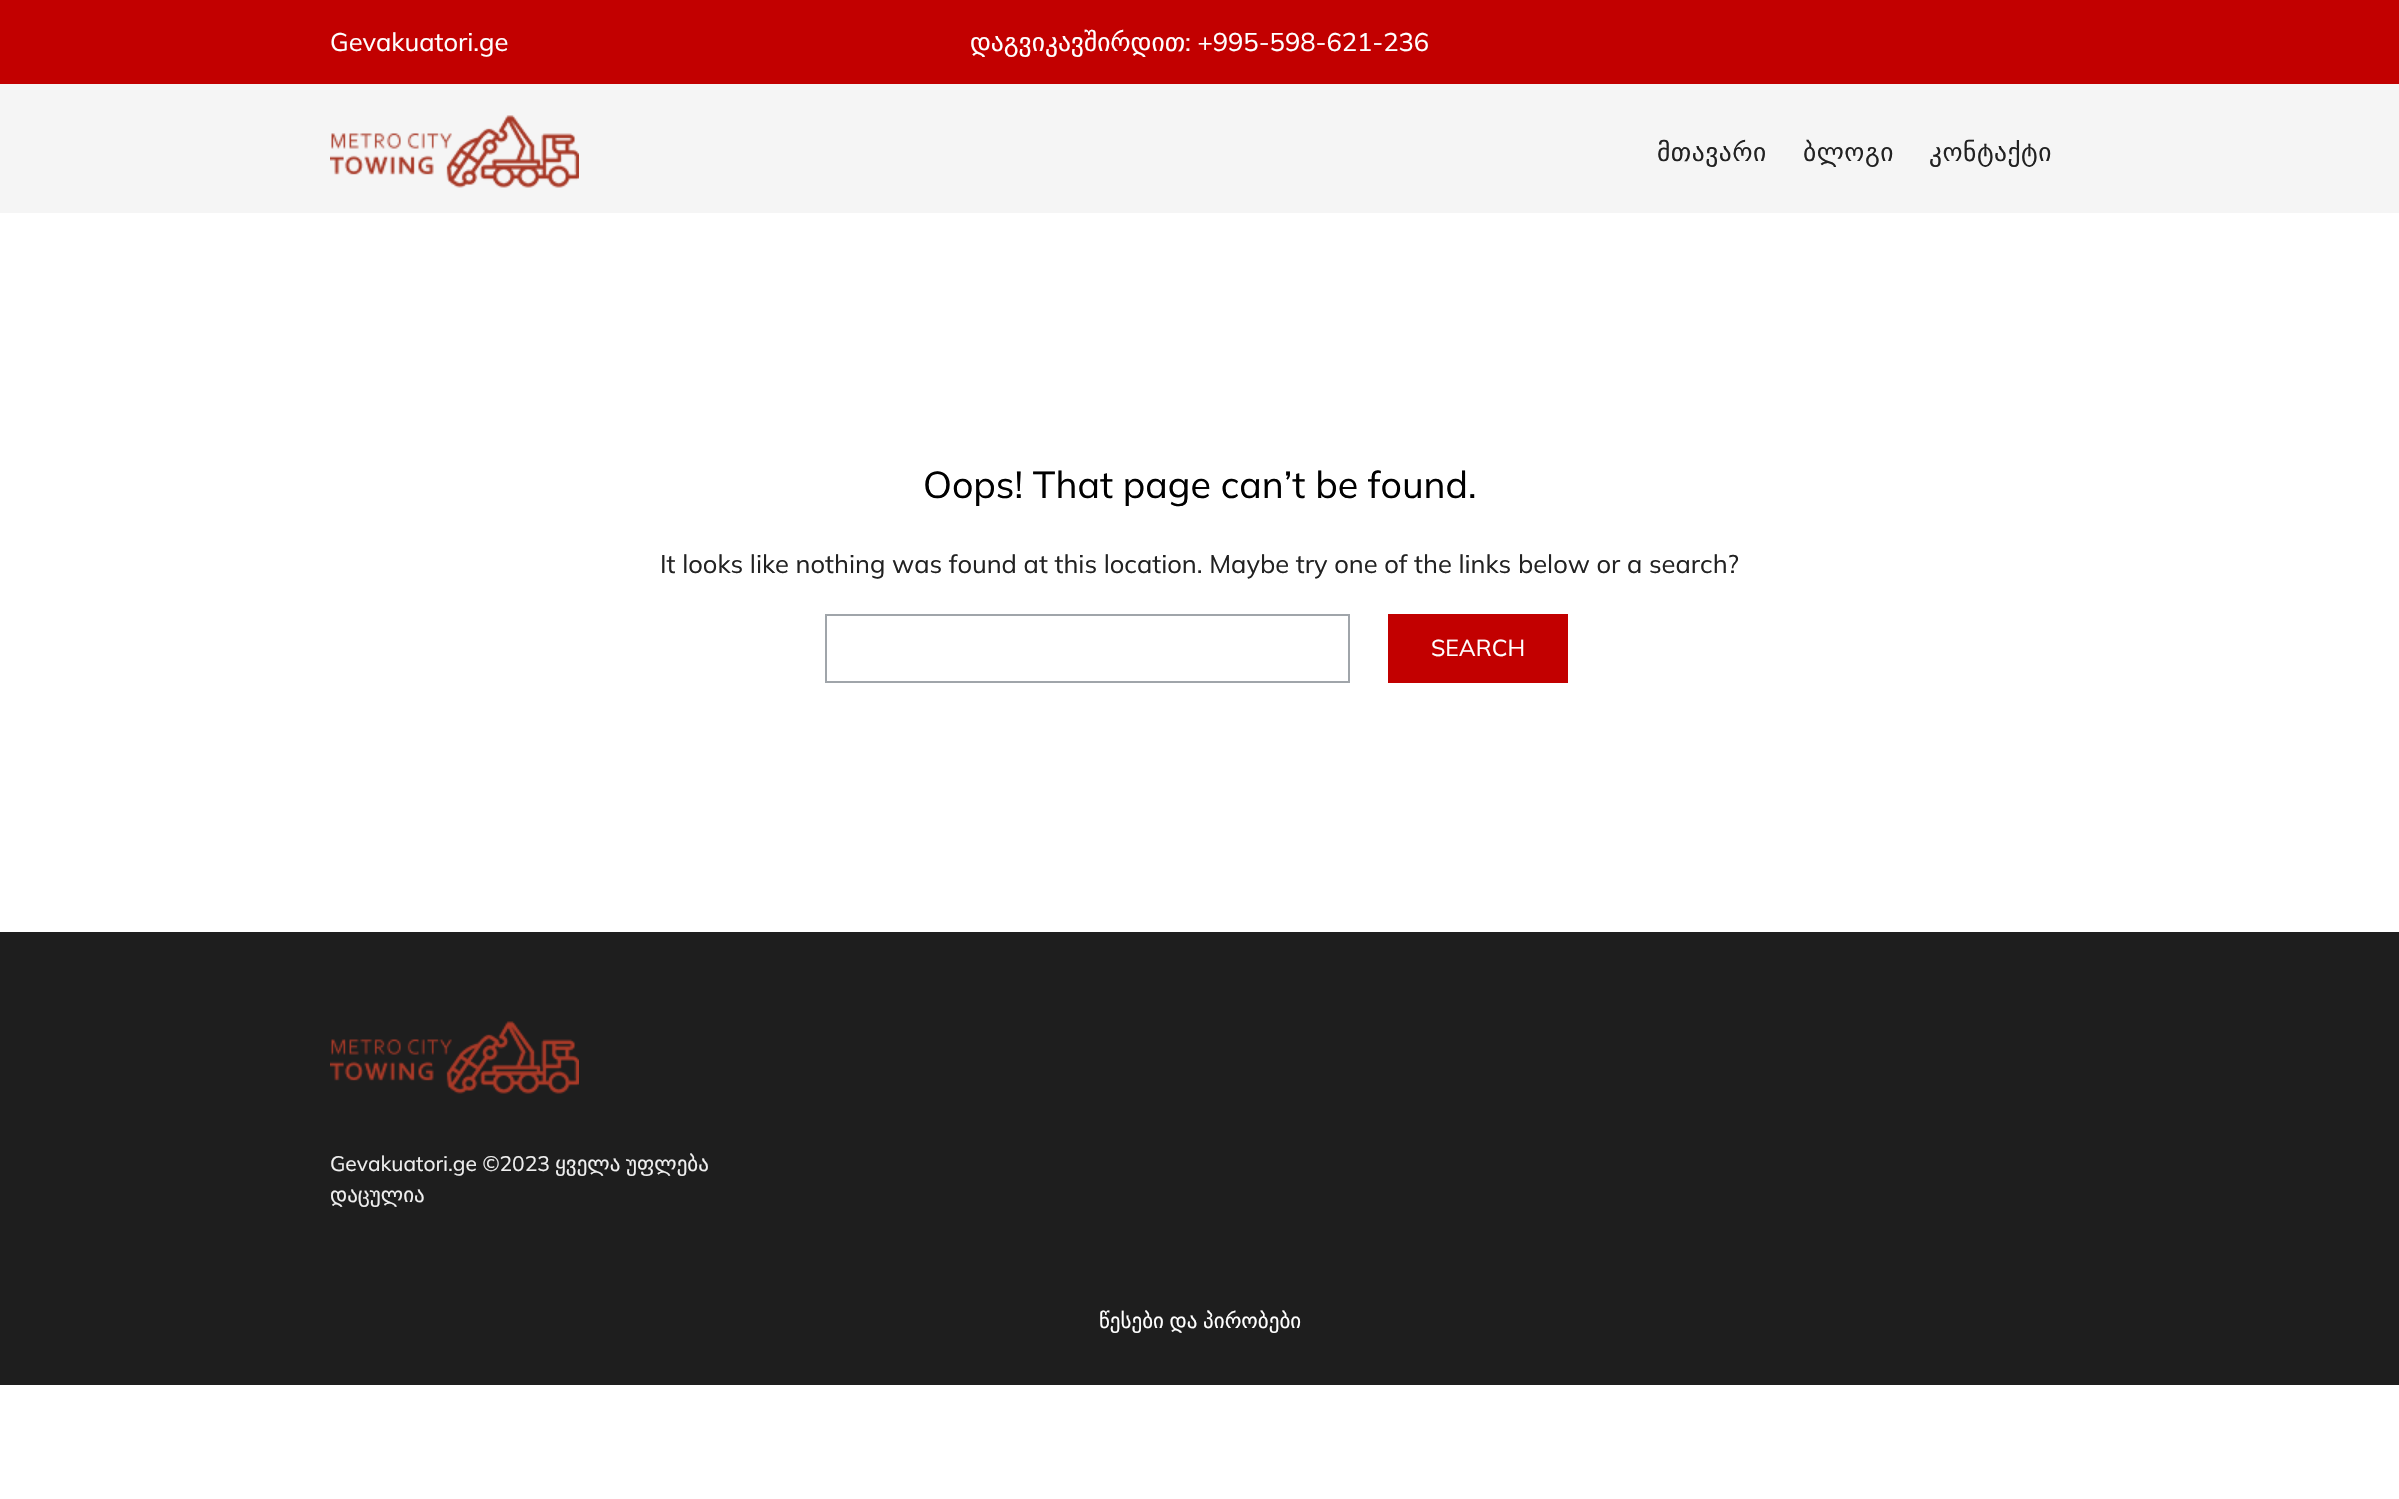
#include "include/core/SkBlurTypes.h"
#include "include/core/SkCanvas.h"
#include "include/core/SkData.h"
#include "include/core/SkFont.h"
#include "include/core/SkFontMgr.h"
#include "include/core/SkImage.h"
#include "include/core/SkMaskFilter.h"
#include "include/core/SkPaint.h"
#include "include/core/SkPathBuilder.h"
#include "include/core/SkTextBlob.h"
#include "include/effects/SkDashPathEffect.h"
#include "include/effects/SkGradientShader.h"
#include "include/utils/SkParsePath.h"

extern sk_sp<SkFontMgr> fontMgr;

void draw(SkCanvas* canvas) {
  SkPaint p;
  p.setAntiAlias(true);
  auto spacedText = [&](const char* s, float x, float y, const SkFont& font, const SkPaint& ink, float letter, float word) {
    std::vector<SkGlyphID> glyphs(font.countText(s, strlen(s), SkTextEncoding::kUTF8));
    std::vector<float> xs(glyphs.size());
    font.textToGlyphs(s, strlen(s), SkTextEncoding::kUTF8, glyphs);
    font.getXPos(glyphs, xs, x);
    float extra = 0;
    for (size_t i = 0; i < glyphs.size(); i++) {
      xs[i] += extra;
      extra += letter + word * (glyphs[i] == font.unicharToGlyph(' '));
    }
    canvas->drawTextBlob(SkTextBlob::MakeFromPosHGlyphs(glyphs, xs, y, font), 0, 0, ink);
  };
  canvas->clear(SK_ColorWHITE);
  p.setColor(SkColorSetRGB(194, 0, 0));
  canvas->drawRect(SkRect::MakeLTRB(0, 0, 2399, 84), p);
  p.setColor(SkColorSetRGB(245, 245, 245));
  canvas->drawRect(SkRect::MakeLTRB(0, 84, 2399, 213), p);
  canvas->drawImageRect(SkImages::DeferredFromEncodedData(SkData::MakeFromFileName("images/1.png")), SkRect::MakeLTRB(330, 115, 579, 188), SkSamplingOptions());
  p.setStyle(SkPaint::kStroke_Style);
  p.setStrokeWidth(2);
  p.setColor(SkColorSetRGB(160, 165, 170));
  canvas->drawRect(SkRect::MakeLTRB(826, 615, 1349, 682), p);
  p.setStyle(SkPaint::kFill_Style);
  p.setColor(SkColorSetRGB(194, 0, 0));
  canvas->drawRect(SkRect::MakeLTRB(1388, 614, 1568, 683), p);
  p.setColor(SkColorSetRGB(30, 30, 30));
  canvas->drawRect(SkRect::MakeLTRB(0, 932, 2399, 1385), p);
  canvas->drawImageRect(SkImages::DeferredFromEncodedData(SkData::MakeFromFileName("images/2.png")), SkRect::MakeLTRB(330, 1021, 579, 1094), SkSamplingOptions());
  SkFont font1(fontMgr->matchFamilyStyle("Mulish", SkFontStyle(200, SkFontStyle::kNormal_Width, SkFontStyle::kUpright_Slant)), 25.5f);
  font1.setSubpixel(true);
  p.setColor(SK_ColorWHITE);
  canvas->drawString("Gevakuatori.ge", 330, 51, font1, p);
  SkFont font2(fontMgr->matchFamilyStyle("DejaVu Sans", SkFontStyle::Normal()), 25.5f);
  font2.setSubpixel(true);
  canvas->drawString("დაგვიკავშირდით", 970, 51, font2, p);
  canvas->drawString(": +995-598-621-236", 1185, 51, font1, p);
  p.setColor(SkColorSetRGB(34, 34, 34));
  spacedText("მთავარი", 1657, 161, font2, p, 0.5f, 0);
  spacedText("ბლოგი", 1803, 161, font2, p, 0.5f, 0);
  spacedText("კონტაქტი", 1929, 161, font2, p, 0.5f, 0);
  SkFont font3(fontMgr->matchFamilyStyle("Mulish", SkFontStyle(200, SkFontStyle::kNormal_Width, SkFontStyle::kUpright_Slant)), 37.5f);
  font3.setSubpixel(true);
  p.setColor(SK_ColorBLACK);
  canvas->drawString("Oops! That page can’t be found.", 923, 498, font3, p);
  p.setColor(SkColorSetRGB(34, 34, 34));
  canvas->drawString("It looks like nothing was found at this location. Maybe try one of the links below or a search?", 660, 573, font1, p);
  SkFont font4(fontMgr->matchFamilyStyle("Mulish", SkFontStyle(200, SkFontStyle::kNormal_Width, SkFontStyle::kUpright_Slant)), 23);
  font4.setSubpixel(true);
  p.setColor(SK_ColorWHITE);
  canvas->drawString("SEARCH", 1431, 656, font4, p);
  SkFont font5(fontMgr->matchFamilyStyle("Mulish", SkFontStyle(200, SkFontStyle::kNormal_Width, SkFontStyle::kUpright_Slant)), 21);
  font5.setSubpixel(true);
  p.setColor(SkColorSetRGB(239, 239, 239));
  canvas->drawString("Gevakuatori.ge ©2023", 330, 1171, font5, p);
  SkFont font6(fontMgr->matchFamilyStyle("DejaVu Sans", SkFontStyle::Normal()), 21);
  font6.setSubpixel(true);
  canvas->drawString("ყველა", 555, 1171, font6, p);
  canvas->drawString("უფლება", 626, 1171, font6, p);
  canvas->drawString("დაცულია", 330, 1202, font6, p);
  p.setColor(SK_ColorWHITE);
  spacedText("წესები და პირობები", 1099, 1328, font6, p, 0, -1);
}
